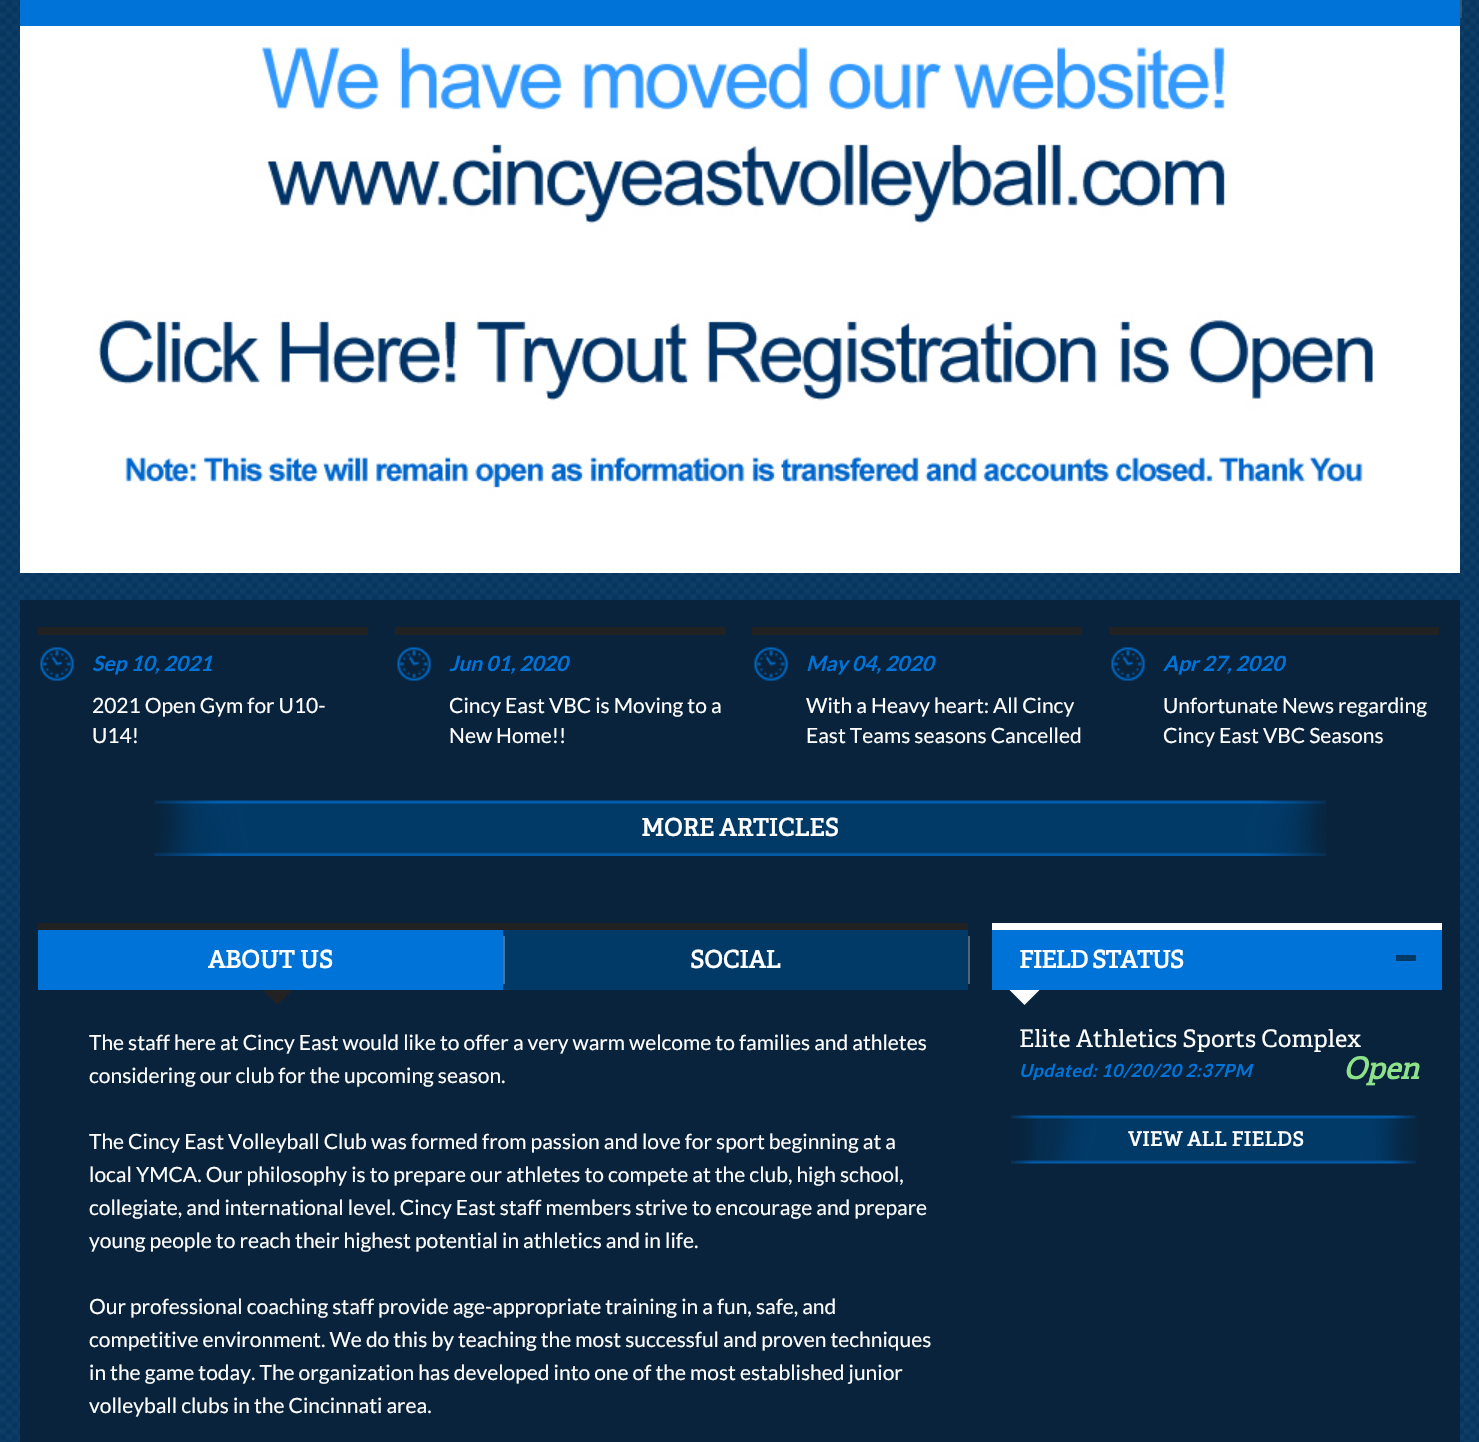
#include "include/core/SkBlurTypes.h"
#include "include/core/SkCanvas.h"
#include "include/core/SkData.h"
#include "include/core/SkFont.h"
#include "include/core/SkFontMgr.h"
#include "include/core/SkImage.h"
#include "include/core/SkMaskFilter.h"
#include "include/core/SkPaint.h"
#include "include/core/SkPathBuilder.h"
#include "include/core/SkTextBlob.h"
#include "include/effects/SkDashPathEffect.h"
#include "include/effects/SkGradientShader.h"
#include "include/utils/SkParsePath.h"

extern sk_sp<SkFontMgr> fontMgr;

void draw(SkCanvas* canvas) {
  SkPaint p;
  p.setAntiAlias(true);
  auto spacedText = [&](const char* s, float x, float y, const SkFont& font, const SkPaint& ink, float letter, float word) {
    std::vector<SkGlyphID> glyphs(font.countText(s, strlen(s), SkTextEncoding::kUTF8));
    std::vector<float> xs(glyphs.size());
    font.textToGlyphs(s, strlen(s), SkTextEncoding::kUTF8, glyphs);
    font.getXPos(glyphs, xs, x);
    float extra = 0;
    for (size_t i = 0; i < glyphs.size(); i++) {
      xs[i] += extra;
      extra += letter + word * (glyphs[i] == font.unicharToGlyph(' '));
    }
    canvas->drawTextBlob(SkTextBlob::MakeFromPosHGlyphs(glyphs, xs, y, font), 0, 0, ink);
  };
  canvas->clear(SK_ColorWHITE);
  canvas->drawImageRect(SkImages::DeferredFromEncodedData(SkData::MakeFromFileName("images/1.png")), SkRect::MakeLTRB(0, 0, 1479, 1442), SkSamplingOptions());
  p.setColor(SkColorSetRGB(0, 115, 216));
  canvas->drawRect(SkRect::MakeLTRB(20, 0, 1460, 26), p);
  p.setColor(SkColorSetARGB(38, 255, 255, 255));
  canvas->drawRect(SkRect::MakeLTRB(1460, 0, 1462, 18), p);
  canvas->drawImageRect(SkImages::DeferredFromEncodedData(SkData::MakeFromFileName("images/2.png")), SkRect::MakeLTRB(20, 26, 1460, 573), SkSamplingOptions());
  p.setColor(SkColorSetRGB(8, 35, 59));
  canvas->drawRect(SkRect::MakeLTRB(20, 600, 1460, 1442), p);
  p.setColor(SkColorSetRGB(34, 34, 34));
  canvas->drawRect(SkRect::MakeLTRB(38, 627, 368, 635), p);
  canvas->drawImageRect(SkImages::DeferredFromEncodedData(SkData::MakeFromFileName("images/3.png")), SkRect::MakeLTRB(40, 647, 74, 681), SkSamplingOptions());
  canvas->drawRect(SkRect::MakeLTRB(395, 627, 725, 635), p);
  canvas->drawImageRect(SkImages::DeferredFromEncodedData(SkData::MakeFromFileName("images/4.png")), SkRect::MakeLTRB(397, 647, 431, 681), SkSamplingOptions());
  canvas->drawRect(SkRect::MakeLTRB(752, 627, 1082, 635), p);
  canvas->drawImageRect(SkImages::DeferredFromEncodedData(SkData::MakeFromFileName("images/5.png")), SkRect::MakeLTRB(754, 647, 788, 681), SkSamplingOptions());
  canvas->drawRect(SkRect::MakeLTRB(1109, 627, 1439, 635), p);
  canvas->drawImageRect(SkImages::DeferredFromEncodedData(SkData::MakeFromFileName("images/3.png")), SkRect::MakeLTRB(1111, 647, 1145, 681), SkSamplingOptions());
  canvas->drawImageRect(SkImages::DeferredFromEncodedData(SkData::MakeFromFileName("images/6.png")), SkRect::MakeLTRB(154, 800, 1326, 856), SkSamplingOptions());
  p.setColor(SkColorSetRGB(1, 57, 103));
  canvas->drawRect(SkRect::MakeLTRB(503, 930, 968, 990), p);
  p.setColor(SkColorSetRGB(34, 34, 34));
  canvas->drawRect(SkRect::MakeLTRB(38, 923, 968, 930), p);
  p.setColor(SkColorSetRGB(0, 115, 216));
  canvas->drawRect(SkRect::MakeLTRB(38, 930, 503, 990), p);
  p.setColor(SkColorSetRGB(77, 116, 149));
  canvas->drawRect(SkRect::MakeLTRB(503, 936, 505, 984), p);
  p.setColor(SkColorSetRGB(34, 34, 34));
  canvas->drawPath(SkPathBuilder().moveTo(262.5f, 990).lineTo(292.5f, 990).lineTo(277.5f, 1005).close().detach(), p);
  p.setColor(SkColorSetRGB(82, 101, 118));
  canvas->drawRect(SkRect::MakeLTRB(968, 936, 970, 984), p);
  p.setColor(SkColorSetRGB(0, 115, 216));
  canvas->drawRect(SkRect::MakeLTRB(992, 930, 1442, 990), p);
  p.setColor(SK_ColorWHITE);
  canvas->drawRect(SkRect::MakeLTRB(992, 923, 1442, 930), p);
  p.setColor(SkColorSetRGB(1, 57, 103));
  canvas->drawRect(SkRect::MakeLTRB(1396, 955, 1416, 961), p);
  p.setColor(SK_ColorWHITE);
  canvas->drawPath(SkPathBuilder().moveTo(1009.5f, 990).lineTo(1039.5f, 990).lineTo(1024.5f, 1005).close().detach(), p);
  canvas->drawImageRect(SkImages::DeferredFromEncodedData(SkData::MakeFromFileName("images/7.png")), SkRect::MakeLTRB(1011, 1115, 1418, 1164), SkSamplingOptions());
  SkFont font1(fontMgr->matchFamilyStyle("Lato", SkFontStyle::BoldItalic()), 21);
  font1.setSubpixel(true);
  p.setColor(SkColorSetRGB(0, 115, 216));
  canvas->drawString("Sep 10, 2021", 92, 671, font1, p);
  SkFont font2(fontMgr->matchFamilyStyle("Lato", SkFontStyle::Normal()), 21);
  font2.setSubpixel(true);
  p.setColor(SK_ColorWHITE);
  canvas->drawString("2021 Open Gym for U10-", 92, 713, font2, p);
  canvas->drawString("U14!", 92, 743, font2, p);
  p.setColor(SkColorSetRGB(0, 115, 216));
  canvas->drawString("Jun 01, 2020", 449, 671, font1, p);
  p.setColor(SK_ColorWHITE);
  canvas->drawString("Cincy East VBC is Moving to a", 449, 713, font2, p);
  canvas->drawString("New Home!!", 449, 743, font2, p);
  p.setColor(SkColorSetRGB(0, 115, 216));
  canvas->drawString("May 04, 2020", 806, 671, font1, p);
  p.setColor(SK_ColorWHITE);
  canvas->drawString("With a Heavy heart: All Cincy", 806, 713, font2, p);
  canvas->drawString("East Teams seasons Cancelled", 806, 743, font2, p);
  p.setColor(SkColorSetRGB(0, 115, 216));
  canvas->drawString("Apr 27, 2020", 1163, 671, font1, p);
  p.setColor(SK_ColorWHITE);
  canvas->drawString("Unfortunate News regarding", 1163, 713, font2, p);
  canvas->drawString("Cincy East VBC Seasons", 1163, 743, font2, p);
  SkFont font3(fontMgr->matchFamilyStyle("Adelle", SkFontStyle::Bold()), 24);
  font3.setSubpixel(true);
  canvas->drawString("MORE ARTICLES", 641, 836, font3, p);
  canvas->drawString("ABOUT US", 208, 968, font3, p);
  canvas->drawString("SOCIAL", 690, 968, font3, p);
  canvas->drawString("The staff here at Cincy East would like to offer a very warm welcome to families and athletes", 89, 1050, font2, p);
  canvas->drawString("considering our club for the upcoming season.", 89, 1083, font2, p);
  canvas->drawString("The Cincy East Volleyball Club was formed from passion and love for sport beginning at a", 89, 1149, font2, p);
  canvas->drawString("local YMCA. Our philosophy is to prepare our athletes to compete at the club, high school,", 89, 1182, font2, p);
  canvas->drawString("collegiate, and international level. Cincy East staff members strive to encourage and prepare", 89, 1215, font2, p);
  canvas->drawString("young people to reach their highest potential in athletics and in life.", 89, 1248, font2, p);
  canvas->drawString("Our professional coaching staff provide age-appropriate training in a fun, safe, and", 89, 1314, font2, p);
  canvas->drawString("competitive environment. We do this by teaching the most successful and proven techniques", 89, 1347, font2, p);
  canvas->drawString("in the game today. The organization has developed into one of the most established junior", 89, 1380, font2, p);
  canvas->drawString("volleyball clubs in the Cincinnati area.", 89, 1413, font2, p);
  spacedText("FIELD STATUS", 1019, 968, font3, p, -0.75f, 0);
  SkFont font4(fontMgr->matchFamilyStyle("Adelle", SkFontStyle::Normal()), 24);
  font4.setSubpixel(true);
  canvas->drawString("Elite Athletics Sports Complex", 1019, 1047, font4, p);
  SkFont font5(fontMgr->matchFamilyStyle("Lato", SkFontStyle::BoldItalic()), 18);
  font5.setSubpixel(true);
  p.setColor(SkColorSetRGB(0, 115, 216));
  spacedText("Updated: 10/20/20 2:37PM", 1019, 1077, font5, p, 0.45f, 0);
  SkFont font6(fontMgr->matchFamilyStyle("Adelle", SkFontStyle::BoldItalic()), 30);
  font6.setSubpixel(true);
  p.setColor(SkColorSetRGB(142, 227, 138));
  canvas->drawString("Open", 1343, 1079, font6, p);
  SkFont font7(fontMgr->matchFamilyStyle("Adelle", SkFontStyle::Bold()), 19.5f);
  font7.setSubpixel(true);
  p.setColor(SK_ColorWHITE);
  spacedText("VIEW ALL FIELDS", 1128, 1146, font7, p, 0.45f, 0);
}
